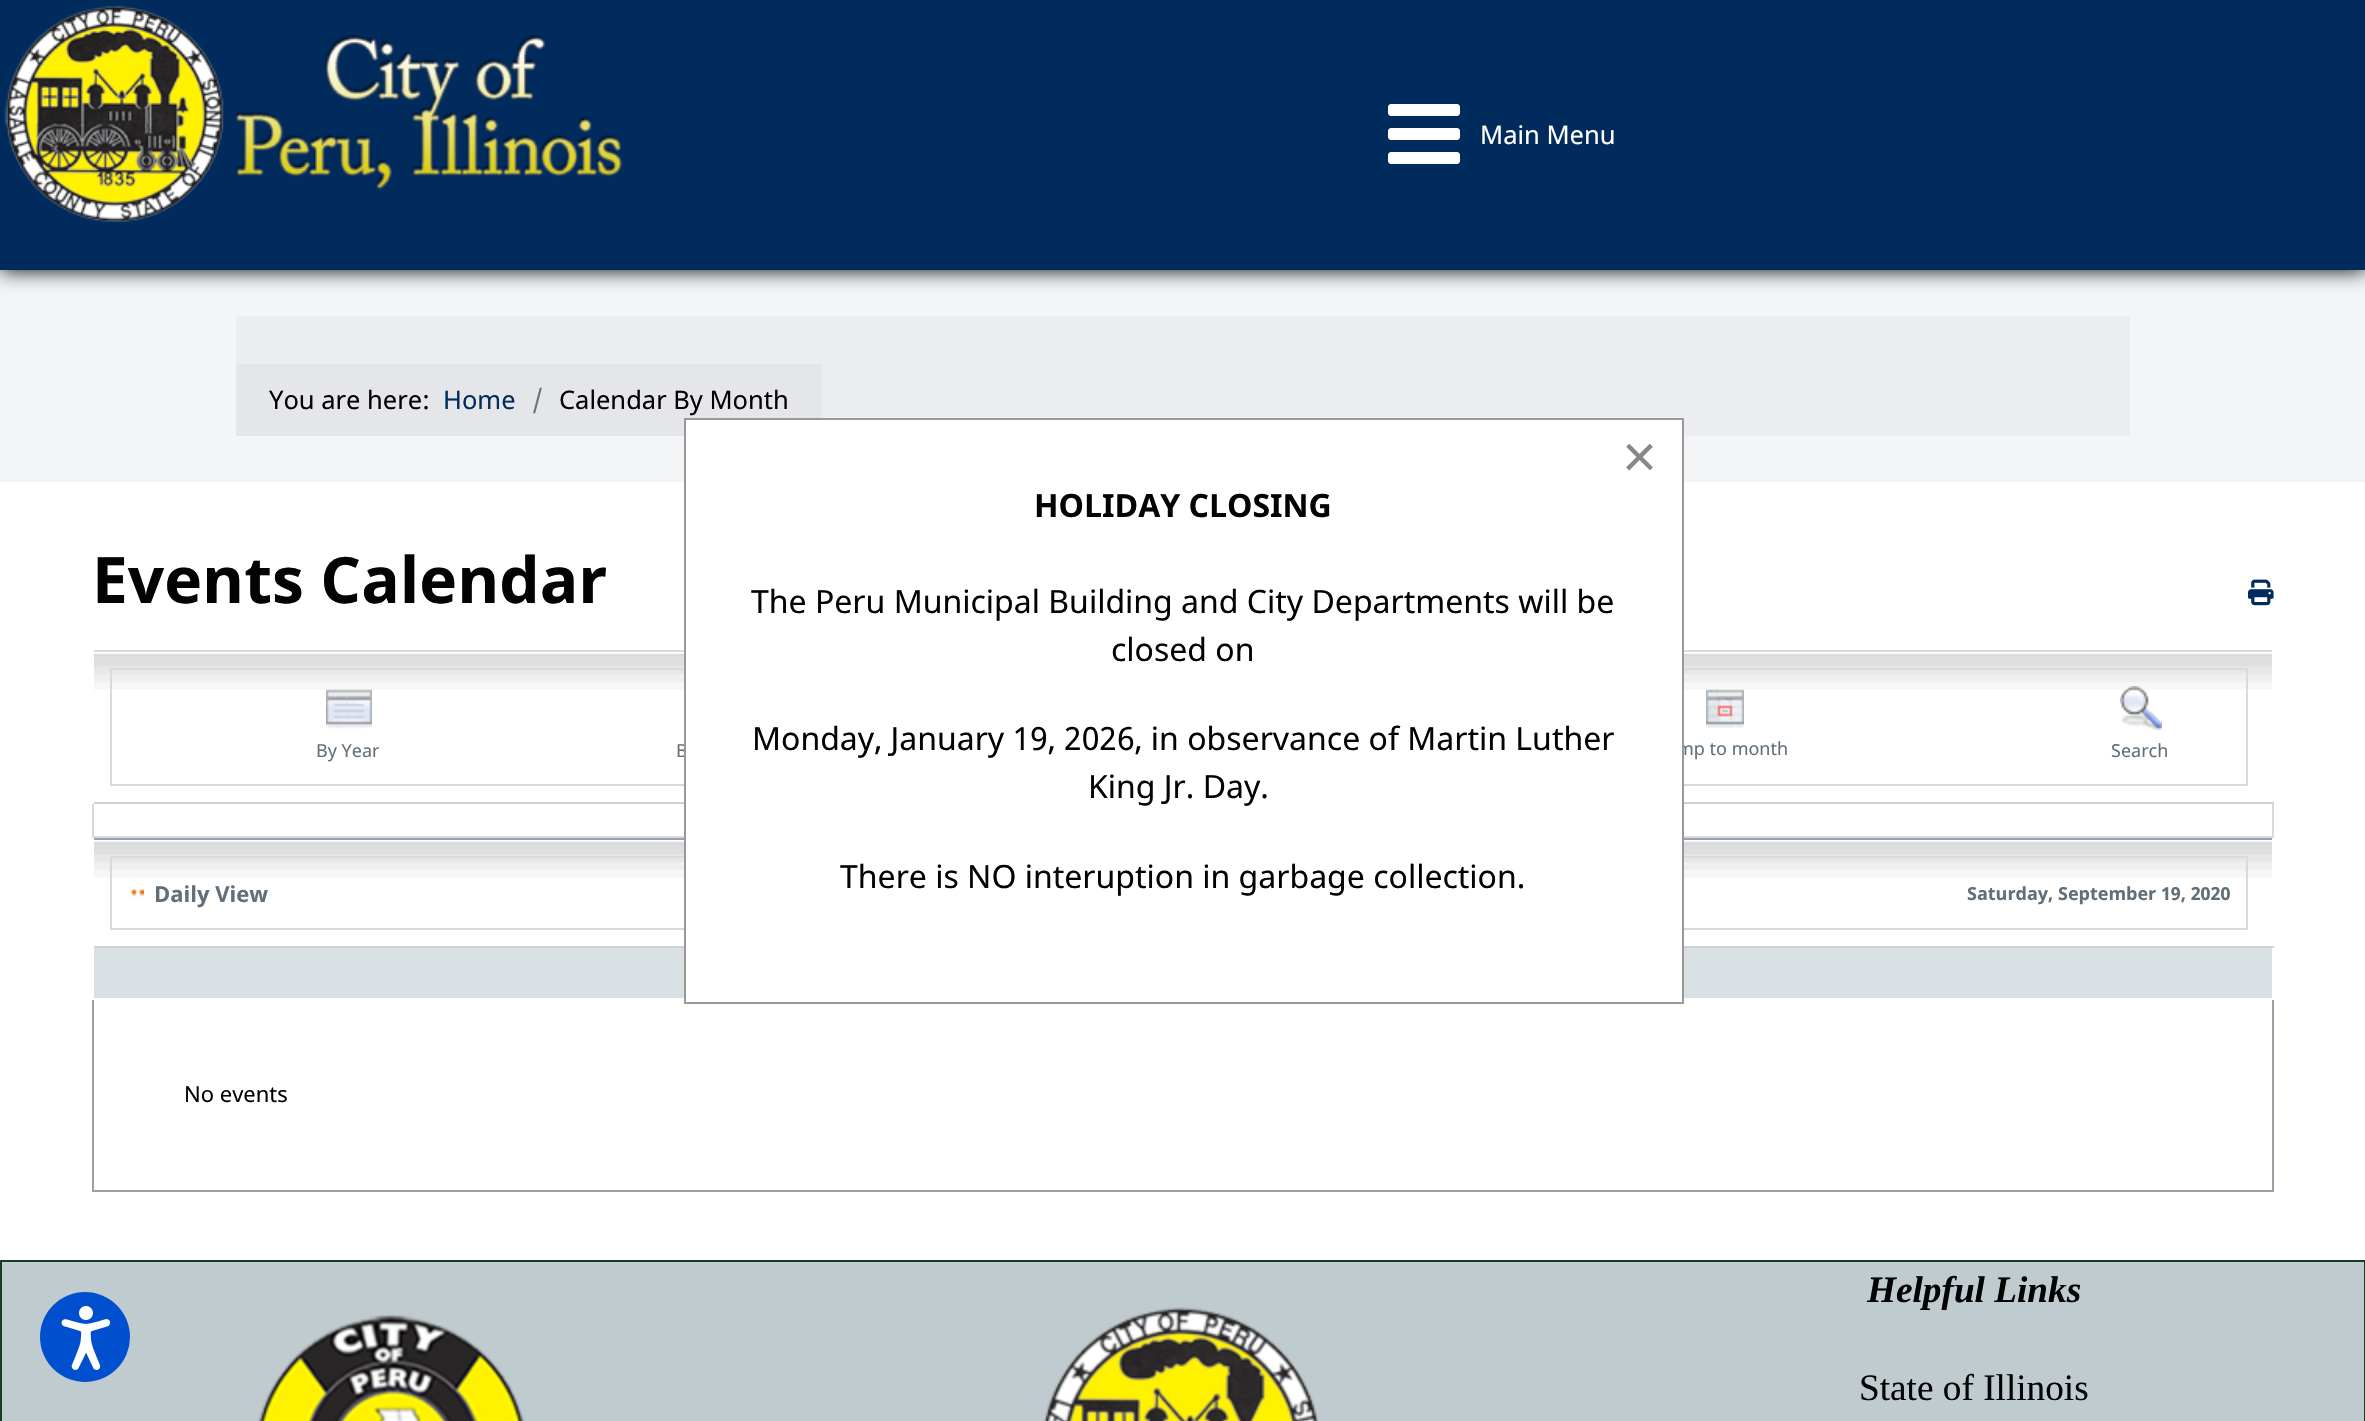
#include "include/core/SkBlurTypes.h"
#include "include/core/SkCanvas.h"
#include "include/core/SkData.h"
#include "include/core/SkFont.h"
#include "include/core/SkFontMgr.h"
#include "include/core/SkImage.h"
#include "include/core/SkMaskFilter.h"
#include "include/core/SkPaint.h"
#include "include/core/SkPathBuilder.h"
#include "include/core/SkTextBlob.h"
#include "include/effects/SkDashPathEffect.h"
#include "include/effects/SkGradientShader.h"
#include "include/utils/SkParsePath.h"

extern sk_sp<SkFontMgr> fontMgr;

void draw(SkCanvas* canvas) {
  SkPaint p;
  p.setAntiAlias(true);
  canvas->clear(SK_ColorWHITE);
  p.setColor(SkColorSetRGB(191, 203, 206));
  canvas->drawRect(SkRect::MakeLTRB(1, 1261, 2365, 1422), p);
  p.setStyle(SkPaint::kStroke_Style);
  p.setStrokeWidth(2);
  p.setColor(SkColorSetRGB(22, 62, 37));
  canvas->drawRect(SkRect::MakeLTRB(1, 1261, 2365, 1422), p);
  p.setStyle(SkPaint::kFill_Style);
  p.setColor(SkColorSetRGB(0, 79, 206));
  canvas->drawCircle(85, 1337, 45, p);
  canvas->drawImageRect(SkImages::DeferredFromEncodedData(SkData::MakeFromFileName("images/1.png")), SkRect::MakeLTRB(61, 1306, 111, 1370), SkSamplingOptions());
  p.setColor(SkColorSetRGB(243, 245, 247));
  canvas->drawRect(SkRect::MakeLTRB(0, 270, 2365, 482), p);
  p.setColor(SK_ColorBLACK);
  p.setMaskFilter(SkMaskFilter::MakeBlur(kNormal_SkBlurStyle, 10));
  canvas->drawRect(SkRect::MakeLTRB(0, 0, 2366, 270), p);
  p.setMaskFilter(nullptr);
  p.setColor(SkColorSetRGB(0, 43, 92));
  canvas->drawRect(SkRect::MakeLTRB(0, 0, 2365, 270), p);
  canvas->drawImageRect(SkImages::DeferredFromEncodedData(SkData::MakeFromFileName("images/2.png")), SkRect::MakeLTRB(4, 6, 623, 223), SkSamplingOptions());
  canvas->drawImageRect(SkImages::DeferredFromEncodedData(SkData::MakeFromFileName("images/3.png")), SkRect::MakeLTRB(1388, 104, 1460, 164), SkSamplingOptions());
  p.setColor(SkColorSetRGB(236, 237, 240));
  canvas->drawRect(SkRect::MakeLTRB(236, 316, 2130, 436), p);
  p.setColor(SkColorSetRGB(229, 230, 233));
  canvas->drawRect(SkRect::MakeLTRB(236, 364, 822, 436), p);
  canvas->drawImageRect(SkImages::DeferredFromEncodedData(SkData::MakeFromFileName("images/4.png")), SkRect::MakeLTRB(2248, 579, 2274, 606), SkSamplingOptions());
  p.setColor(SkColorSetRGB(212, 220, 227));
  canvas->drawRect(SkRect::MakeLTRB(92, 650, 2274, 652), p);
  canvas->drawRect(SkRect::MakeLTRB(2272, 804, 2274, 838), p);
  canvas->drawRect(SkRect::MakeLTRB(92, 836, 2274, 838), p);
  canvas->drawRect(SkRect::MakeLTRB(92, 804, 94, 838), p);
  canvas->drawImageRect(SkImages::DeferredFromEncodedData(SkData::MakeFromFileName("images/5.png")), SkRect::MakeLTRB(94, 653, 2272, 690), SkSamplingOptions());
  p.setColor(SK_ColorWHITE);
  canvas->drawRect(SkRect::MakeLTRB(2272, 650, 2274, 652), p);
  p.setColor(SkColorSetRGB(206, 210, 214));
  canvas->drawRect(SkRect::MakeLTRB(92, 802, 2274, 804), p);
  p.setColor(SK_ColorWHITE);
  canvas->drawRect(SkRect::MakeLTRB(92, 650, 94, 804), p);
  p.setColor(SkColorSetRGB(212, 220, 227));
  canvas->drawRect(SkRect::MakeLTRB(110, 668, 2248, 670), p);
  canvas->drawRect(SkRect::MakeLTRB(2246, 668, 2248, 786), p);
  canvas->drawRect(SkRect::MakeLTRB(110, 784, 2248, 786), p);
  canvas->drawRect(SkRect::MakeLTRB(110, 668, 112, 786), p);
  canvas->drawImageRect(SkImages::DeferredFromEncodedData(SkData::MakeFromFileName("images/6.png")), SkRect::MakeLTRB(326, 689, 372, 729), SkSamplingOptions());
  canvas->drawImageRect(SkImages::DeferredFromEncodedData(SkData::MakeFromFileName("images/7.png")), SkRect::MakeLTRB(1706, 689, 1744, 728), SkSamplingOptions());
  canvas->drawImageRect(SkImages::DeferredFromEncodedData(SkData::MakeFromFileName("images/8.png")), SkRect::MakeLTRB(2120, 686, 2162, 731), SkSamplingOptions());
  p.setColor(SkColorSetRGB(153, 160, 170));
  canvas->drawRect(SkRect::MakeLTRB(92, 838, 2274, 840), p);
  canvas->drawRect(SkRect::MakeLTRB(2272, 1000, 2274, 1192), p);
  canvas->drawRect(SkRect::MakeLTRB(92, 1190, 2274, 1192), p);
  canvas->drawRect(SkRect::MakeLTRB(92, 1000, 94, 1192), p);
  canvas->drawImageRect(SkImages::DeferredFromEncodedData(SkData::MakeFromFileName("images/5.png")), SkRect::MakeLTRB(94, 841, 2272, 878), SkSamplingOptions());
  p.setColor(SK_ColorWHITE);
  canvas->drawRect(SkRect::MakeLTRB(2272, 838, 2274, 840), p);
  p.setColor(SkColorSetRGB(206, 210, 214));
  canvas->drawRect(SkRect::MakeLTRB(92, 946, 2274, 948), p);
  p.setColor(SK_ColorWHITE);
  canvas->drawRect(SkRect::MakeLTRB(92, 838, 94, 948), p);
  p.setColor(SkColorSetRGB(212, 220, 227));
  canvas->drawRect(SkRect::MakeLTRB(110, 856, 2248, 858), p);
  canvas->drawRect(SkRect::MakeLTRB(2246, 856, 2248, 930), p);
  canvas->drawRect(SkRect::MakeLTRB(110, 928, 2248, 930), p);
  canvas->drawRect(SkRect::MakeLTRB(110, 856, 112, 930), p);
  canvas->drawImageRect(SkImages::DeferredFromEncodedData(SkData::MakeFromFileName("images/9.png")), SkRect::MakeLTRB(131, 889, 144, 897), SkSamplingOptions());
  p.setColor(SkColorSetRGB(216, 224, 228));
  canvas->drawRect(SkRect::MakeLTRB(94, 948, 684, 998), p);
  canvas->drawRect(SkRect::MakeLTRB(1684, 948, 2272, 998), p);
  canvas->drawImageRect(SkImages::DeferredFromEncodedData(SkData::MakeFromFileName("images/10.png")), SkRect::MakeLTRB(257, 1315, 525, 1421), SkSamplingOptions());
  canvas->drawImageRect(SkImages::DeferredFromEncodedData(SkData::MakeFromFileName("images/11.png")), SkRect::MakeLTRB(1043, 1307, 1319, 1421), SkSamplingOptions());
  SkFont font1(fontMgr->matchFamilyStyle("Noto Sans", SkFontStyle::Normal()), 25.5f);
  font1.setSubpixel(true);
  p.setColor(SK_ColorWHITE);
  canvas->drawString("Main Menu", 1480, 144, font1, p);
  p.setColor(SkColorSetRGB(3, 3, 3));
  canvas->drawString("You are here:", 269, 409, font1, p);
  p.setColor(SkColorSetRGB(0, 43, 92));
  canvas->drawString("Home", 443, 409, font1, p);
  p.setColor(SkColorSetRGB(108, 117, 125));
  canvas->drawString("/", 532, 409, font1, p);
  p.setColor(SkColorSetRGB(3, 3, 3));
  canvas->drawString("Calendar By Month", 559, 409, font1, p);
  SkFont font2(fontMgr->matchFamilyStyle("Noto Sans", SkFontStyle::Bold()), 64);
  font2.setSubpixel(true);
  canvas->drawString("Events Calendar", 92, 603, font2, p);
  SkFont font3(fontMgr->matchFamilyStyle("Noto Sans", SkFontStyle::Normal()), 18);
  font3.setSubpixel(true);
  p.setColor(SkColorSetRGB(96, 111, 121));
  canvas->drawString("By Year", 316, 757, font3, p);
  canvas->drawString("B", 676, 757, font3, p);
  canvas->drawString("mp to month", 1677, 755, font3, p);
  canvas->drawString("Search", 2111, 757, font3, p);
  SkFont font4(fontMgr->matchFamilyStyle("Noto Sans", SkFontStyle::Bold()), 22);
  font4.setSubpixel(true);
  canvas->drawString("Daily View", 154, 902, font4, p);
  SkFont font5(fontMgr->matchFamilyStyle("Noto Sans", SkFontStyle::Bold()), 18);
  font5.setSubpixel(true);
  canvas->drawString("Saturday, September 19, 2020", 1967, 900, font5, p);
  SkFont font6(fontMgr->matchFamilyStyle("Noto Sans", SkFontStyle::Normal()), 22);
  font6.setSubpixel(true);
  p.setColor(SkColorSetRGB(3, 3, 3));
  canvas->drawString("No events", 184, 1102, font6, p);
  SkFont font7(fontMgr->matchFamilyStyle("Liberation Serif", SkFontStyle::BoldItalic()), 37.25f);
  font7.setSubpixel(true);
  canvas->drawString("Helpful Links", 1867, 1302, font7, p);
  SkFont font8(fontMgr->matchFamilyStyle("Liberation Serif", SkFontStyle::Normal()), 37.25f);
  font8.setSubpixel(true);
  canvas->drawString("State of Illinois", 1859, 1400, font8, p);
  p.setColor(SK_ColorWHITE);
  canvas->drawRect(SkRect::MakeLTRB(686, 420, 1682, 948), p);
  p.setStyle(SkPaint::kStroke_Style);
  p.setColor(SkColorSetRGB(153, 153, 153));
  canvas->drawRect(SkRect::MakeLTRB(685, 419, 1683, 1003), p);
  SkFont font9(fontMgr->matchFamilyStyle("Liberation Sans", SkFontStyle::Normal()), 60);
  font9.setSubpixel(true);
  p.setStyle(SkPaint::kFill_Style);
  p.setColor(SkColorSetRGB(136, 136, 136));
  canvas->drawString("×", 1622, 477, font9, p);
  SkFont font10(fontMgr->matchFamilyStyle("Noto Sans", SkFontStyle::Bold()), 32);
  font10.setSubpixel(true);
  p.setColor(SkColorSetRGB(3, 3, 3));
  canvas->drawString("HOLIDAY CLOSING", 1034, 517, font10, p);
  SkFont font11(fontMgr->matchFamilyStyle("Noto Sans", SkFontStyle::Normal()), 32);
  font11.setSubpixel(true);
  canvas->drawString("The Peru Municipal Building and City Departments will be", 751, 613, font11, p);
  canvas->drawString("closed on", 1111, 661, font11, p);
  canvas->drawString("Monday, January 19, 2026, in observance of Martin Luther", 752, 750, font11, p);
  canvas->drawString("King Jr. Day.", 1088, 798, font11, p);
  canvas->drawString("There is NO interuption in garbage collection.", 840, 888, font11, p);
}
